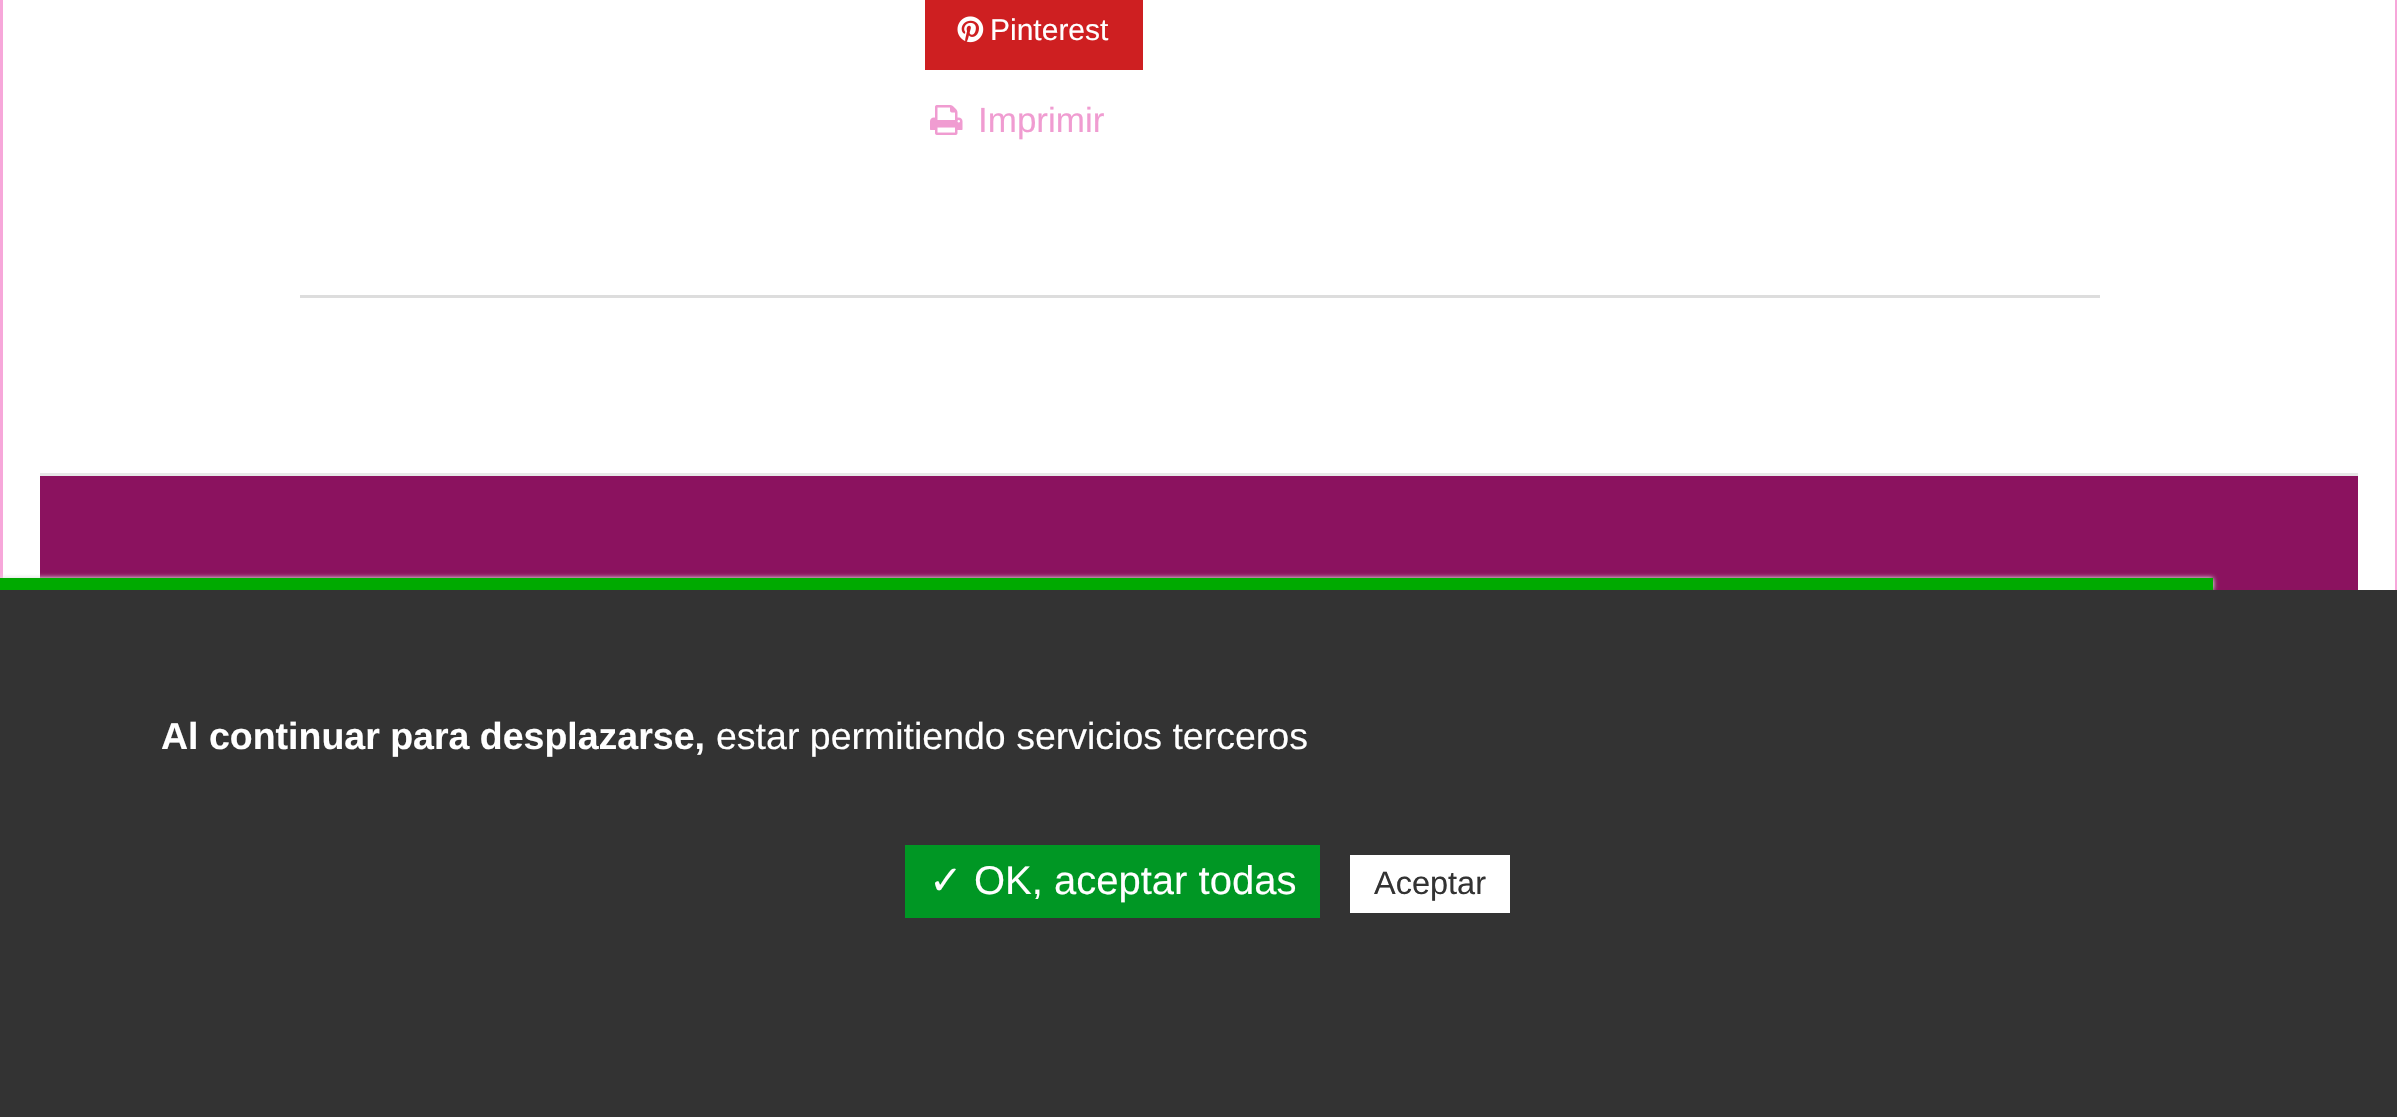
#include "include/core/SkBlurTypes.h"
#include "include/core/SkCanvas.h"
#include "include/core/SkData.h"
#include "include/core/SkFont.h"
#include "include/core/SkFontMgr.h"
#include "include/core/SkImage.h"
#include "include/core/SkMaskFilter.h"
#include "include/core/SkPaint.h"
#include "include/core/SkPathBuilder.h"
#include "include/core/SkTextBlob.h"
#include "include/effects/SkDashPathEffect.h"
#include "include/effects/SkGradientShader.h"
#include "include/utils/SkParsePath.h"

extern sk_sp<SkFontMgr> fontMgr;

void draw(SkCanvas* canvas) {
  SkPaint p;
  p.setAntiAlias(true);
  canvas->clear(SK_ColorWHITE);
  p.setStyle(SkPaint::kStroke_Style);
  p.setStrokeWidth(3);
  p.setColor(SkColorSetRGB(247, 167, 218));
  canvas->drawRect(SkRect::MakeLTRB(1.5f, -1.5f, 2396.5f, 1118.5f), p);
  p.setStyle(SkPaint::kFill_Style);
  p.setColor(SkColorSetRGB(206, 31, 33));
  canvas->drawRect(SkRect::MakeLTRB(925, 0, 1143, 70), p);
  canvas->drawImageRect(SkImages::DeferredFromEncodedData(SkData::MakeFromFileName("images/1.png")), SkRect::MakeLTRB(957, 16, 984, 43), SkSamplingOptions());
  canvas->drawImageRect(SkImages::DeferredFromEncodedData(SkData::MakeFromFileName("images/2.png")), SkRect::MakeLTRB(930, 105, 963, 135), SkSamplingOptions());
  p.setColor(SkColorSetRGB(221, 221, 221));
  canvas->drawRect(SkRect::MakeLTRB(300, 295, 2100, 298), p);
  p.setColor(SkColorSetRGB(139, 18, 95));
  canvas->drawRect(SkRect::MakeLTRB(40, 476, 2358, 590), p);
  p.setColor(SkColorSetRGB(231, 231, 231));
  canvas->drawRect(SkRect::MakeLTRB(40, 473, 2358, 476), p);
  p.setColor(SkColorSetRGB(85, 85, 85));
  p.setMaskFilter(SkMaskFilter::MakeBlur(kNormal_SkBlurStyle, 2.5f));
  canvas->drawRect(SkRect::MakeLTRB(0, 580, 2213, 593), p);
  p.setMaskFilter(nullptr);
  p.setColor(SK_ColorWHITE);
  p.setMaskFilter(SkMaskFilter::MakeBlur(kNormal_SkBlurStyle, 2.5f));
  canvas->drawRect(SkRect::MakeLTRB(0, 578, 2213, 590), p);
  p.setMaskFilter(nullptr);
  p.setColor(SkColorSetRGB(0, 170, 0));
  canvas->drawRect(SkRect::MakeLTRB(0, 578, 2213, 590), p);
  p.setColor(SkColorSetRGB(51, 51, 51));
  canvas->drawRect(SkRect::MakeLTRB(0, 590, 2397, 1117), p);
  p.setColor(SkColorSetRGB(0, 151, 36));
  canvas->drawRect(SkRect::MakeLTRB(905, 845, 1320, 918), p);
  p.setColor(SK_ColorWHITE);
  canvas->drawRect(SkRect::MakeLTRB(1350, 855, 1510, 913), p);
  SkFont font1(fontMgr->matchFamilyStyle("Liberation Sans", SkFontStyle::Normal()), 30);
  font1.setSubpixel(true);
  canvas->drawString("Pinterest", 990, 40, font1, p);
  SkFont font2(fontMgr->matchFamilyStyle("Liberation Sans", SkFontStyle::Normal()), 35);
  font2.setSubpixel(true);
  p.setColor(SkColorSetRGB(240, 156, 209));
  canvas->drawString("Imprimir", 978, 132, font2, p);
  SkFont font3(fontMgr->matchFamilyStyle("Liberation Sans", SkFontStyle::Bold()), 37.5f);
  font3.setSubpixel(true);
  p.setColor(SK_ColorWHITE);
  canvas->drawString("Al continuar para desplazarse,", 161, 749, font3, p);
  SkFont font4(fontMgr->matchFamilyStyle("Liberation Sans", SkFontStyle::Normal()), 37.5f);
  font4.setSubpixel(true);
  canvas->drawString("estar permitiendo servicios terceros", 716, 749, font4, p);
  SkFont font5(fontMgr->matchFamilyStyle("DejaVu Sans", SkFontStyle::Normal()), 40);
  font5.setSubpixel(true);
  canvas->drawString("✓", 929, 894, font5, p);
  SkFont font6(fontMgr->matchFamilyStyle("Liberation Sans", SkFontStyle::Normal()), 40);
  font6.setSubpixel(true);
  canvas->drawString("OK, aceptar todas", 974, 894, font6, p);
  SkFont font7(fontMgr->matchFamilyStyle("Liberation Sans", SkFontStyle::Normal()), 32.5f);
  font7.setSubpixel(true);
  p.setColor(SkColorSetRGB(51, 51, 51));
  canvas->drawString("Aceptar", 1374, 894, font7, p);
}
